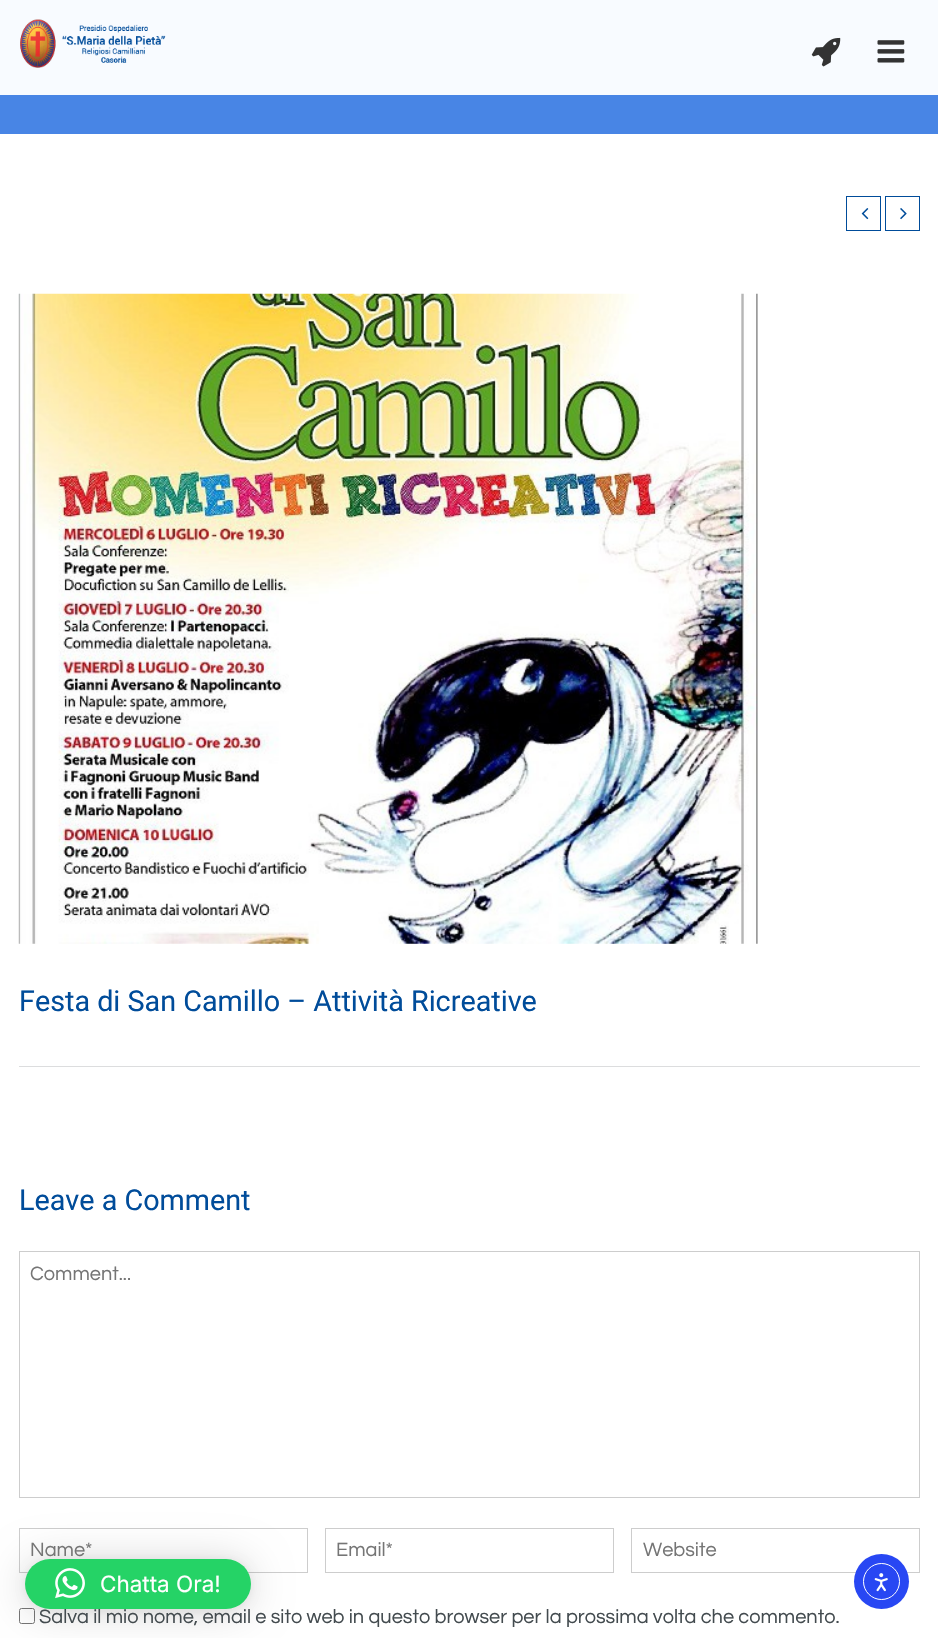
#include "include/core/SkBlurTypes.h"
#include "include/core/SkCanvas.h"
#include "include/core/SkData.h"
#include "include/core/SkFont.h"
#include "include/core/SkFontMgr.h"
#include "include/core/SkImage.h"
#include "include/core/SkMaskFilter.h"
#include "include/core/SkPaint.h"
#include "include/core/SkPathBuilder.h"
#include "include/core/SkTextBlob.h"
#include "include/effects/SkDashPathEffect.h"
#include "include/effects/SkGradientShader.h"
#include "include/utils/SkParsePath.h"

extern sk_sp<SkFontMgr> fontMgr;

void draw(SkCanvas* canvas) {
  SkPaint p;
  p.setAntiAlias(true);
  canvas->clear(SK_ColorWHITE);
  p.setColor(SkColorSetRGB(248, 251, 255));
  canvas->drawRect(SkRect::MakeLTRB(0, 0, 938, 95), p);
  canvas->drawImageRect(SkImages::DeferredFromEncodedData(SkData::MakeFromFileName("images/1.png")), SkRect::MakeLTRB(20, 19, 166, 68), SkSamplingOptions());
  canvas->drawImageRect(SkImages::DeferredFromEncodedData(SkData::MakeFromFileName("images/2.png")), SkRect::MakeLTRB(811, 37, 841, 67), SkSamplingOptions());
  canvas->drawImageRect(SkImages::DeferredFromEncodedData(SkData::MakeFromFileName("images/3.png")), SkRect::MakeLTRB(877, 40, 905, 63), SkSamplingOptions());
  p.setColor(SkColorSetRGB(72, 133, 229));
  canvas->drawRect(SkRect::MakeLTRB(0, 95, 938, 134), p);
  p.setStyle(SkPaint::kStroke_Style);
  p.setStrokeWidth(1);
  p.setColor(SkColorSetRGB(0, 76, 154));
  canvas->drawRect(SkRect::MakeLTRB(846.5f, 196.5f, 880.5f, 230.5f), p);
  canvas->drawImageRect(SkImages::DeferredFromEncodedData(SkData::MakeFromFileName("images/4.png")), SkRect::MakeLTRB(861, 208, 869, 220), SkSamplingOptions());
  canvas->drawRect(SkRect::MakeLTRB(885.5f, 196.5f, 919.5f, 230.5f), p);
  canvas->drawImageRect(SkImages::DeferredFromEncodedData(SkData::MakeFromFileName("images/5.png")), SkRect::MakeLTRB(900, 208, 907, 220), SkSamplingOptions());
  canvas->drawImageRect(SkImages::DeferredFromEncodedData(SkData::MakeFromFileName("images/6.png")), SkRect::MakeLTRB(18, 293, 758, 944), SkSamplingOptions());
  p.setStyle(SkPaint::kFill_Style);
  p.setColor(SkColorSetRGB(220, 221, 222));
  canvas->drawRect(SkRect::MakeLTRB(19, 1066, 920, 1067), p);
  p.setStyle(SkPaint::kStroke_Style);
  p.setColor(SkColorSetRGB(205, 205, 205));
  canvas->drawRect(SkRect::MakeLTRB(19.5f, 1251.5f, 919.5f, 1497.5f), p);
  canvas->drawRect(SkRect::MakeLTRB(19.5f, 1528.5f, 307.5f, 1572.5f), p);
  canvas->drawRect(SkRect::MakeLTRB(325.5f, 1528.5f, 613.5f, 1572.5f), p);
  canvas->drawRect(SkRect::MakeLTRB(631.5f, 1528.5f, 919.5f, 1572.5f), p);
  p.setColor(SkColorSetRGB(118, 118, 118));
  canvas->drawRoundRect(SkRect::MakeLTRB(19.5f, 1608.5f, 34.5f, 1623.5f), 2, 2, p);
  p.setStyle(SkPaint::kFill_Style);
  p.setColor(SkColorSetRGB(40, 71, 243));
  canvas->drawCircle(881.5f, 1581.5f, 27.5f, p);
  p.setStyle(SkPaint::kStroke_Style);
  p.setColor(SK_ColorWHITE);
  canvas->drawCircle(881.5f, 1581.5f, 18, p);
  canvas->drawImageRect(SkImages::DeferredFromEncodedData(SkData::MakeFromFileName("images/7.png")), SkRect::MakeLTRB(874, 1573, 888, 1592), SkSamplingOptions());
  p.setStyle(SkPaint::kFill_Style);
  p.setColor(SkColorSetARGB(41, 0, 0, 0));
  p.setMaskFilter(SkMaskFilter::MakeBlur(kNormal_SkBlurStyle, 20));
  canvas->drawRoundRect(SkRect::MakeLTRB(25, 1561, 251, 1611), 25, 25, p);
  p.setMaskFilter(nullptr);
  p.setColor(SkColorSetARGB(15, 0, 0, 0));
  p.setMaskFilter(SkMaskFilter::MakeBlur(kNormal_SkBlurStyle, 4));
  canvas->drawRoundRect(SkRect::MakeLTRB(25, 1560, 251, 1610), 25, 25, p);
  p.setMaskFilter(nullptr);
  p.setColor(SkColorSetRGB(37, 211, 102));
  canvas->drawRoundRect(SkRect::MakeLTRB(25, 1559, 251, 1609), 25, 25, p);
  canvas->drawImageRect(SkImages::DeferredFromEncodedData(SkData::MakeFromFileName("images/8.png")), SkRect::MakeLTRB(55, 1568, 85, 1599), SkSamplingOptions());
  SkFont font1(fontMgr->matchFamilyStyle("Roboto", SkFontStyle::Normal()), 28.75f);
  font1.setSubpixel(true);
  p.setColor(SkColorSetRGB(0, 76, 154));
  canvas->drawString("Festa di San Camillo – Attività Ricreative", 19, 1011, font1, p);
  canvas->drawString("Leave a Comment", 19, 1210, font1, p);
  SkFont font2(fontMgr->matchFamilyStyle("Questrial", SkFontStyle::Normal()), 20);
  font2.setSubpixel(true);
  p.setColor(SkColorSetRGB(117, 117, 117));
  canvas->drawString("Comment...", 30, 1280, font2, p);
  canvas->drawString("Name*", 30, 1556, font2, p);
  canvas->drawString("Email*", 336, 1556, font2, p);
  canvas->drawString("Website", 643, 1556, font2, p);
  p.setColor(SkColorSetRGB(67, 75, 79));
  canvas->drawString("Salva il mio nome, email e sito web in questo browser per la prossima volta che commento.", 39, 1623, font2, p);
  SkFont font3(fontMgr->matchFamilyStyle("Inter", SkFontStyle::Normal()), 22.5f);
  font3.setSubpixel(true);
  p.setColor(SK_ColorWHITE);
  canvas->drawString("Chatta Ora!", 100, 1592, font3, p);
}
